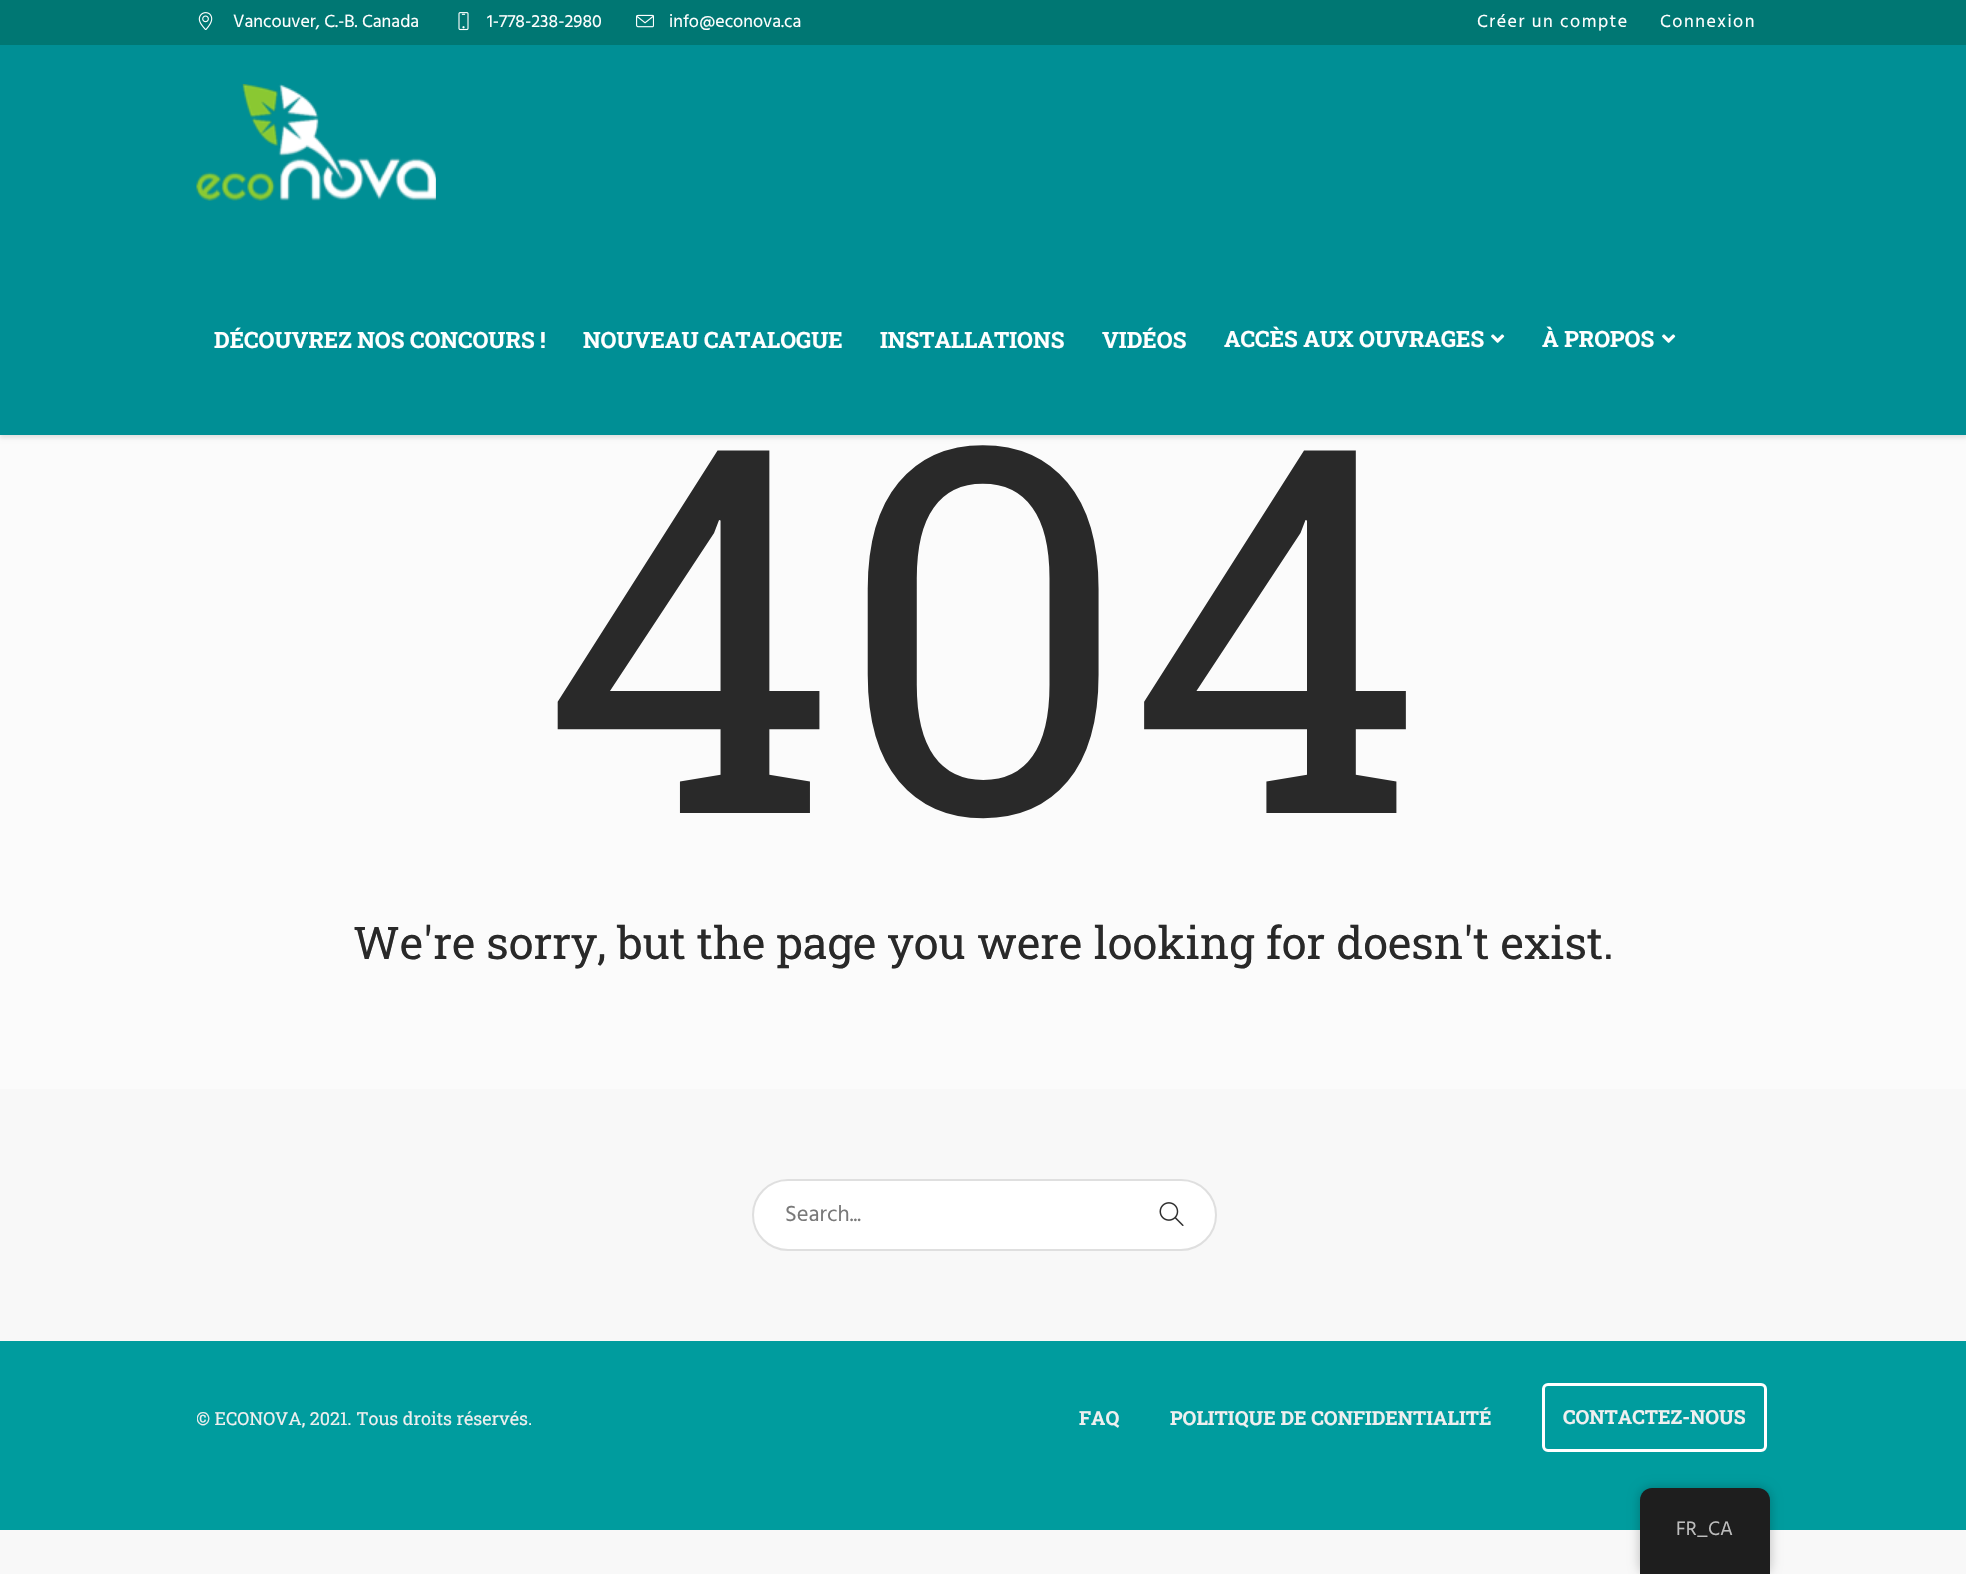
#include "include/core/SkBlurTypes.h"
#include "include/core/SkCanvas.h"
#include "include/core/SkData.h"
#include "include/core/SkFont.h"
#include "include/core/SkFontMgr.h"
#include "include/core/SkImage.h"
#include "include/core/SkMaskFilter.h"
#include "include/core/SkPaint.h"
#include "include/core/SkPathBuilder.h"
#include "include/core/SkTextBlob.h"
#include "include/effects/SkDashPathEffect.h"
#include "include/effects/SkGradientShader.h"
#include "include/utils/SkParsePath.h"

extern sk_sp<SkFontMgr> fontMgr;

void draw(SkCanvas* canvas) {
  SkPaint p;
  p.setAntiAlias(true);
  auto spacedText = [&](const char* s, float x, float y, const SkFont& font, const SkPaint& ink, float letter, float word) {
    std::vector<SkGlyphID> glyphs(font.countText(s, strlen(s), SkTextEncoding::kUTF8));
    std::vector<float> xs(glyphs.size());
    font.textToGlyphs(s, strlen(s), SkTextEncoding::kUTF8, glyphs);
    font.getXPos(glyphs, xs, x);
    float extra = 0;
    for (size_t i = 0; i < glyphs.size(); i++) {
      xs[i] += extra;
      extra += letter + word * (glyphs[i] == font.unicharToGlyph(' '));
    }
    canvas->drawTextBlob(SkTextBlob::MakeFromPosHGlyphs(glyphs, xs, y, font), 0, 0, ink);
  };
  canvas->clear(SkColorSetRGB(248, 248, 248));
  p.setColor(SkColorSetRGB(251, 251, 251));
  canvas->drawRect(SkRect::MakeLTRB(0, 435, 1966, 1089), p);
  p.setColor(SkColorSetARGB(26, 0, 0, 0));
  p.setMaskFilter(SkMaskFilter::MakeBlur(kNormal_SkBlurStyle, 2));
  canvas->drawRect(SkRect::MakeLTRB(0, 3, 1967, 438), p);
  p.setMaskFilter(nullptr);
  p.setColor(SkColorSetRGB(0, 143, 149));
  canvas->drawRect(SkRect::MakeLTRB(0, 45, 1966, 435), p);
  p.setColor(SkColorSetRGB(0, 119, 115));
  canvas->drawRect(SkRect::MakeLTRB(0, 0, 1966, 45), p);
  canvas->drawImageRect(SkImages::DeferredFromEncodedData(SkData::MakeFromFileName("images/1.png")), SkRect::MakeLTRB(198, 12, 213, 30), SkSamplingOptions());
  canvas->drawImageRect(SkImages::DeferredFromEncodedData(SkData::MakeFromFileName("images/2.png")), SkRect::MakeLTRB(458, 12, 469, 31), SkSamplingOptions());
  canvas->drawImageRect(SkImages::DeferredFromEncodedData(SkData::MakeFromFileName("images/3.png")), SkRect::MakeLTRB(636, 14, 654, 28), SkSamplingOptions());
  canvas->drawImageRect(SkImages::DeferredFromEncodedData(SkData::MakeFromFileName("images/4.png")), SkRect::MakeLTRB(196, 84, 436, 201), SkSamplingOptions());
  canvas->drawImageRect(SkImages::DeferredFromEncodedData(SkData::MakeFromFileName("images/5.png")), SkRect::MakeLTRB(1491, 334, 1505, 343), SkSamplingOptions());
  canvas->drawImageRect(SkImages::DeferredFromEncodedData(SkData::MakeFromFileName("images/5.png")), SkRect::MakeLTRB(1662, 334, 1676, 343), SkSamplingOptions());
  p.setColor(SK_ColorWHITE);
  canvas->drawRoundRect(SkRect::MakeLTRB(753, 1180, 1216, 1250), 35, 35, p);
  p.setStyle(SkPaint::kStroke_Style);
  p.setStrokeWidth(2);
  p.setColor(SkColorSetRGB(223, 223, 223));
  canvas->drawRoundRect(SkRect::MakeLTRB(753, 1180, 1216, 1250), 35, 35, p);
  canvas->drawImageRect(SkImages::DeferredFromEncodedData(SkData::MakeFromFileName("images/6.png")), SkRect::MakeLTRB(1159, 1202, 1184, 1226), SkSamplingOptions());
  p.setStyle(SkPaint::kFill_Style);
  p.setColor(SkColorSetRGB(0, 156, 158));
  canvas->drawRect(SkRect::MakeLTRB(0, 1341, 1966, 1530), p);
  p.setStyle(SkPaint::kStroke_Style);
  p.setStrokeWidth(3);
  p.setColor(SK_ColorWHITE);
  canvas->drawRoundRect(SkRect::MakeLTRB(1543.5f, 1384.5f, 1765.5f, 1450.5f), 4.5f, 4.5f, p);
  p.setStyle(SkPaint::kFill_Style);
  p.setColor(SkColorSetARGB(64, 0, 0, 0));
  p.setMaskFilter(SkMaskFilter::MakeBlur(kNormal_SkBlurStyle, 6));
  canvas->drawRoundRect(SkRect::MakeLTRB(1640, 1488, 1770, 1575), 12, 12, p);
  p.setMaskFilter(nullptr);
  p.setColor(SkColorSetRGB(30, 30, 30));
  canvas->drawPath(SkPathBuilder().moveTo(1652, 1488).lineTo(1758, 1488).cubicTo(1764.5f, 1488, 1770, 1493.5f, 1770, 1500).lineTo(1770, 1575).lineTo(1640, 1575).lineTo(1640, 1500).cubicTo(1640, 1493.5f, 1645.5f, 1488, 1652, 1488).close().detach(), p);
  SkFont font1(fontMgr->matchFamilyStyle("Hind", SkFontStyle::Normal()), 18);
  font1.setSubpixel(true);
  p.setColor(SK_ColorWHITE);
  canvas->drawString("Vancouver, C.-B. Canada", 233, 27, font1, p);
  canvas->drawString("1-778-238-2980", 487, 27, font1, p);
  canvas->drawString("info@econova.ca", 669, 27, font1, p);
  spacedText("Créer un compte", 1477, 27, font1, p, 1.5f, 0);
  spacedText("Connexion", 1660, 27, font1, p, 1.5f, 0);
  SkFont font2(fontMgr->matchFamilyStyle("Roboto Slab", SkFontStyle::Bold()), 22.5f);
  font2.setSubpixel(true);
  canvas->drawString("DÉCOUVREZ NOS CONCOURS !", 214, 348, font2, p);
  canvas->drawString("NOUVEAU CATALOGUE", 583, 348, font2, p);
  canvas->drawString("INSTALLATIONS", 880, 348, font2, p);
  canvas->drawString("VIDÉOS", 1102, 348, font2, p);
  canvas->drawString("ACCÈS AUX OUVRAGES", 1224, 347, font2, p);
  canvas->drawString("À PROPOS", 1542, 347, font2, p);
  SkFont font3(fontMgr->matchFamilyStyle("Roboto Slab", SkFontStyle::Normal()), 510);
  font3.setSubpixel(true);
  p.setColor(SkColorSetRGB(41, 41, 41));
  canvas->drawString("404", 542, 813, font3, p);
  SkFont font4(fontMgr->matchFamilyStyle("Roboto Slab", SkFontStyle::Normal()), 45);
  font4.setSubpixel(true);
  canvas->drawString("We're sorry, but the page you were looking for doesn't exist.", 353, 959, font4, p);
  SkFont font5(fontMgr->matchFamilyStyle("Hind", SkFontStyle::Normal()), 22.5f);
  font5.setSubpixel(true);
  p.setColor(SkColorSetRGB(121, 121, 121));
  canvas->drawString("Search...", 785, 1221, font5, p);
  canvas->save();
  canvas->clipRect(SkRect::MakeLTRB(197, 1398, 1079, 1437));
  SkFont font6(fontMgr->matchFamilyStyle("Roboto Slab", SkFontStyle::Normal()), 18);
  font6.setSubpixel(true);
  p.setColor(SkColorSetRGB(239, 239, 239));
  canvas->drawString("© ECONOVA, 2021. Tous droits réservés.", 196, 1425, font6, p);
  canvas->restore();
  SkFont font7(fontMgr->matchFamilyStyle("Roboto Slab", SkFontStyle::Bold()), 19.5f);
  font7.setSubpixel(true);
  canvas->drawString("FAQ", 1079, 1425, font7, p);
  canvas->drawString("POLITIQUE DE CONFIDENTIALITÉ", 1170, 1425, font7, p);
  canvas->drawString("CONTACTEZ-NOUS", 1563, 1424, font7, p);
  SkFont font8(fontMgr->matchFamilyStyle("Hind", SkFontStyle::Normal()), 20);
  font8.setSubpixel(true);
  p.setColor(SkColorSetRGB(189, 189, 189));
  canvas->drawString("FR_CA", 1676, 1535, font8, p);
}
